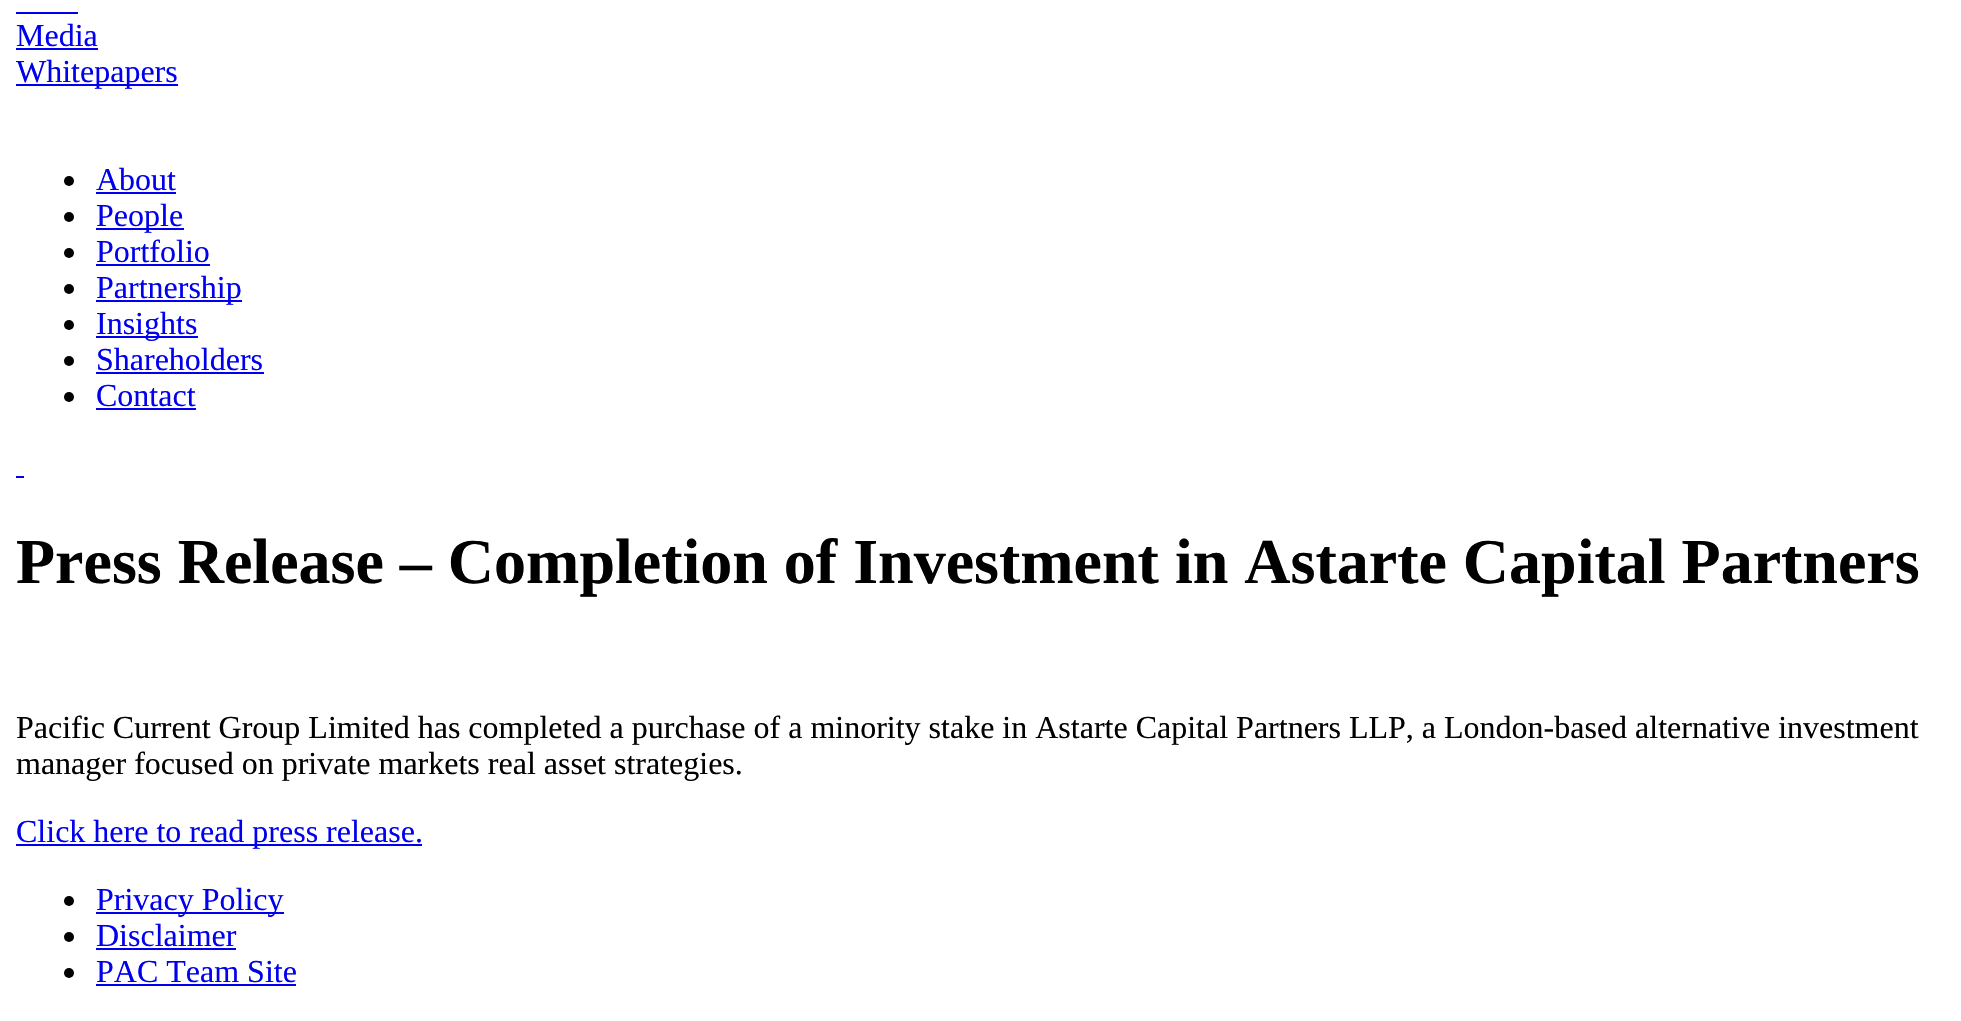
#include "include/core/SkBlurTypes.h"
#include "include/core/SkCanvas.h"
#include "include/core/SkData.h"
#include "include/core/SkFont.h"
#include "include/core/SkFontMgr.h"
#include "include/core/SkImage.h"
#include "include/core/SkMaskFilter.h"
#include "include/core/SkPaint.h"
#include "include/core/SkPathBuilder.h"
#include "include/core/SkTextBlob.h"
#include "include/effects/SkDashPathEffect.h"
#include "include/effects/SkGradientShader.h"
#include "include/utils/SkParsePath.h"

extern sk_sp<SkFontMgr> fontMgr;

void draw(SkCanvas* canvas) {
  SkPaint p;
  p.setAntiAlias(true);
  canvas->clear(SK_ColorWHITE);
  p.setColor(SkColorSetRGB(0, 0, 238));
  canvas->drawRect(SkRect::MakeLTRB(16, 12, 78, 14), p);
  canvas->drawRect(SkRect::MakeLTRB(16, 48, 98, 50), p);
  canvas->drawRect(SkRect::MakeLTRB(16, 84, 178, 86), p);
  p.setColor(SK_ColorBLACK);
  canvas->drawCircle(69, 181, 5, p);
  p.setColor(SkColorSetRGB(0, 0, 238));
  canvas->drawRect(SkRect::MakeLTRB(96, 192, 176, 194), p);
  p.setColor(SK_ColorBLACK);
  canvas->drawCircle(69, 217, 5, p);
  p.setColor(SkColorSetRGB(0, 0, 238));
  canvas->drawRect(SkRect::MakeLTRB(96, 228, 184, 230), p);
  p.setColor(SK_ColorBLACK);
  canvas->drawCircle(69, 253, 5, p);
  p.setColor(SkColorSetRGB(0, 0, 238));
  canvas->drawRect(SkRect::MakeLTRB(96, 264, 210, 266), p);
  p.setColor(SK_ColorBLACK);
  canvas->drawCircle(69, 289, 5, p);
  p.setColor(SkColorSetRGB(0, 0, 238));
  canvas->drawRect(SkRect::MakeLTRB(96, 300, 242, 302), p);
  p.setColor(SK_ColorBLACK);
  canvas->drawCircle(69, 325, 5, p);
  p.setColor(SkColorSetRGB(0, 0, 238));
  canvas->drawRect(SkRect::MakeLTRB(96, 336, 198, 338), p);
  p.setColor(SK_ColorBLACK);
  canvas->drawCircle(69, 361, 5, p);
  p.setColor(SkColorSetRGB(0, 0, 238));
  canvas->drawRect(SkRect::MakeLTRB(96, 372, 264, 374), p);
  p.setColor(SK_ColorBLACK);
  canvas->drawCircle(69, 397, 5, p);
  p.setColor(SkColorSetRGB(0, 0, 238));
  canvas->drawRect(SkRect::MakeLTRB(96, 408, 196, 410), p);
  canvas->drawRect(SkRect::MakeLTRB(16, 476, 24, 478), p);
  canvas->drawRect(SkRect::MakeLTRB(16, 844, 422, 846), p);
  p.setColor(SK_ColorBLACK);
  canvas->drawCircle(69, 901, 5, p);
  p.setColor(SkColorSetRGB(0, 0, 238));
  canvas->drawRect(SkRect::MakeLTRB(96, 912, 284, 914), p);
  p.setColor(SK_ColorBLACK);
  canvas->drawCircle(69, 937, 5, p);
  p.setColor(SkColorSetRGB(0, 0, 238));
  canvas->drawRect(SkRect::MakeLTRB(96, 948, 236, 950), p);
  p.setColor(SK_ColorBLACK);
  canvas->drawCircle(69, 973, 5, p);
  p.setColor(SkColorSetRGB(0, 0, 238));
  canvas->drawRect(SkRect::MakeLTRB(96, 984, 296, 986), p);
  SkFont font1(fontMgr->matchFamilyStyle("Liberation Serif", SkFontStyle::Normal()), 32);
  font1.setSubpixel(true);
  canvas->drawString("Media", 16, 46, font1, p);
  canvas->drawString("Whitepapers", 16, 82, font1, p);
  canvas->drawString("About", 96, 190, font1, p);
  canvas->drawString("People", 96, 226, font1, p);
  canvas->drawString("Portfolio", 96, 262, font1, p);
  canvas->drawString("Partnership", 96, 298, font1, p);
  canvas->drawString("Insights", 96, 334, font1, p);
  canvas->drawString("Shareholders", 96, 370, font1, p);
  canvas->drawString("Contact", 96, 406, font1, p);
  SkFont font2(fontMgr->matchFamilyStyle("Liberation Serif", SkFontStyle::Bold()), 64);
  font2.setSubpixel(true);
  p.setColor(SK_ColorBLACK);
  canvas->drawString("Press Release – Completion of Investment in Astarte Capital Partners", 16, 583, font2, p);
  canvas->drawString("Pacific Current Group Limited has completed a purchase of a minority stake in Astarte Capital Partners LLP, a London-based alternative investment", 16, 738, font1, p);
  canvas->drawString("manager focused on private markets real asset strategies.", 16, 774, font1, p);
  p.setColor(SkColorSetRGB(0, 0, 238));
  canvas->drawString("Click here to read press release.", 16, 842, font1, p);
  canvas->drawString("Privacy Policy", 96, 910, font1, p);
  canvas->drawString("Disclaimer", 96, 946, font1, p);
  canvas->drawString("PAC Team Site", 96, 982, font1, p);
}
